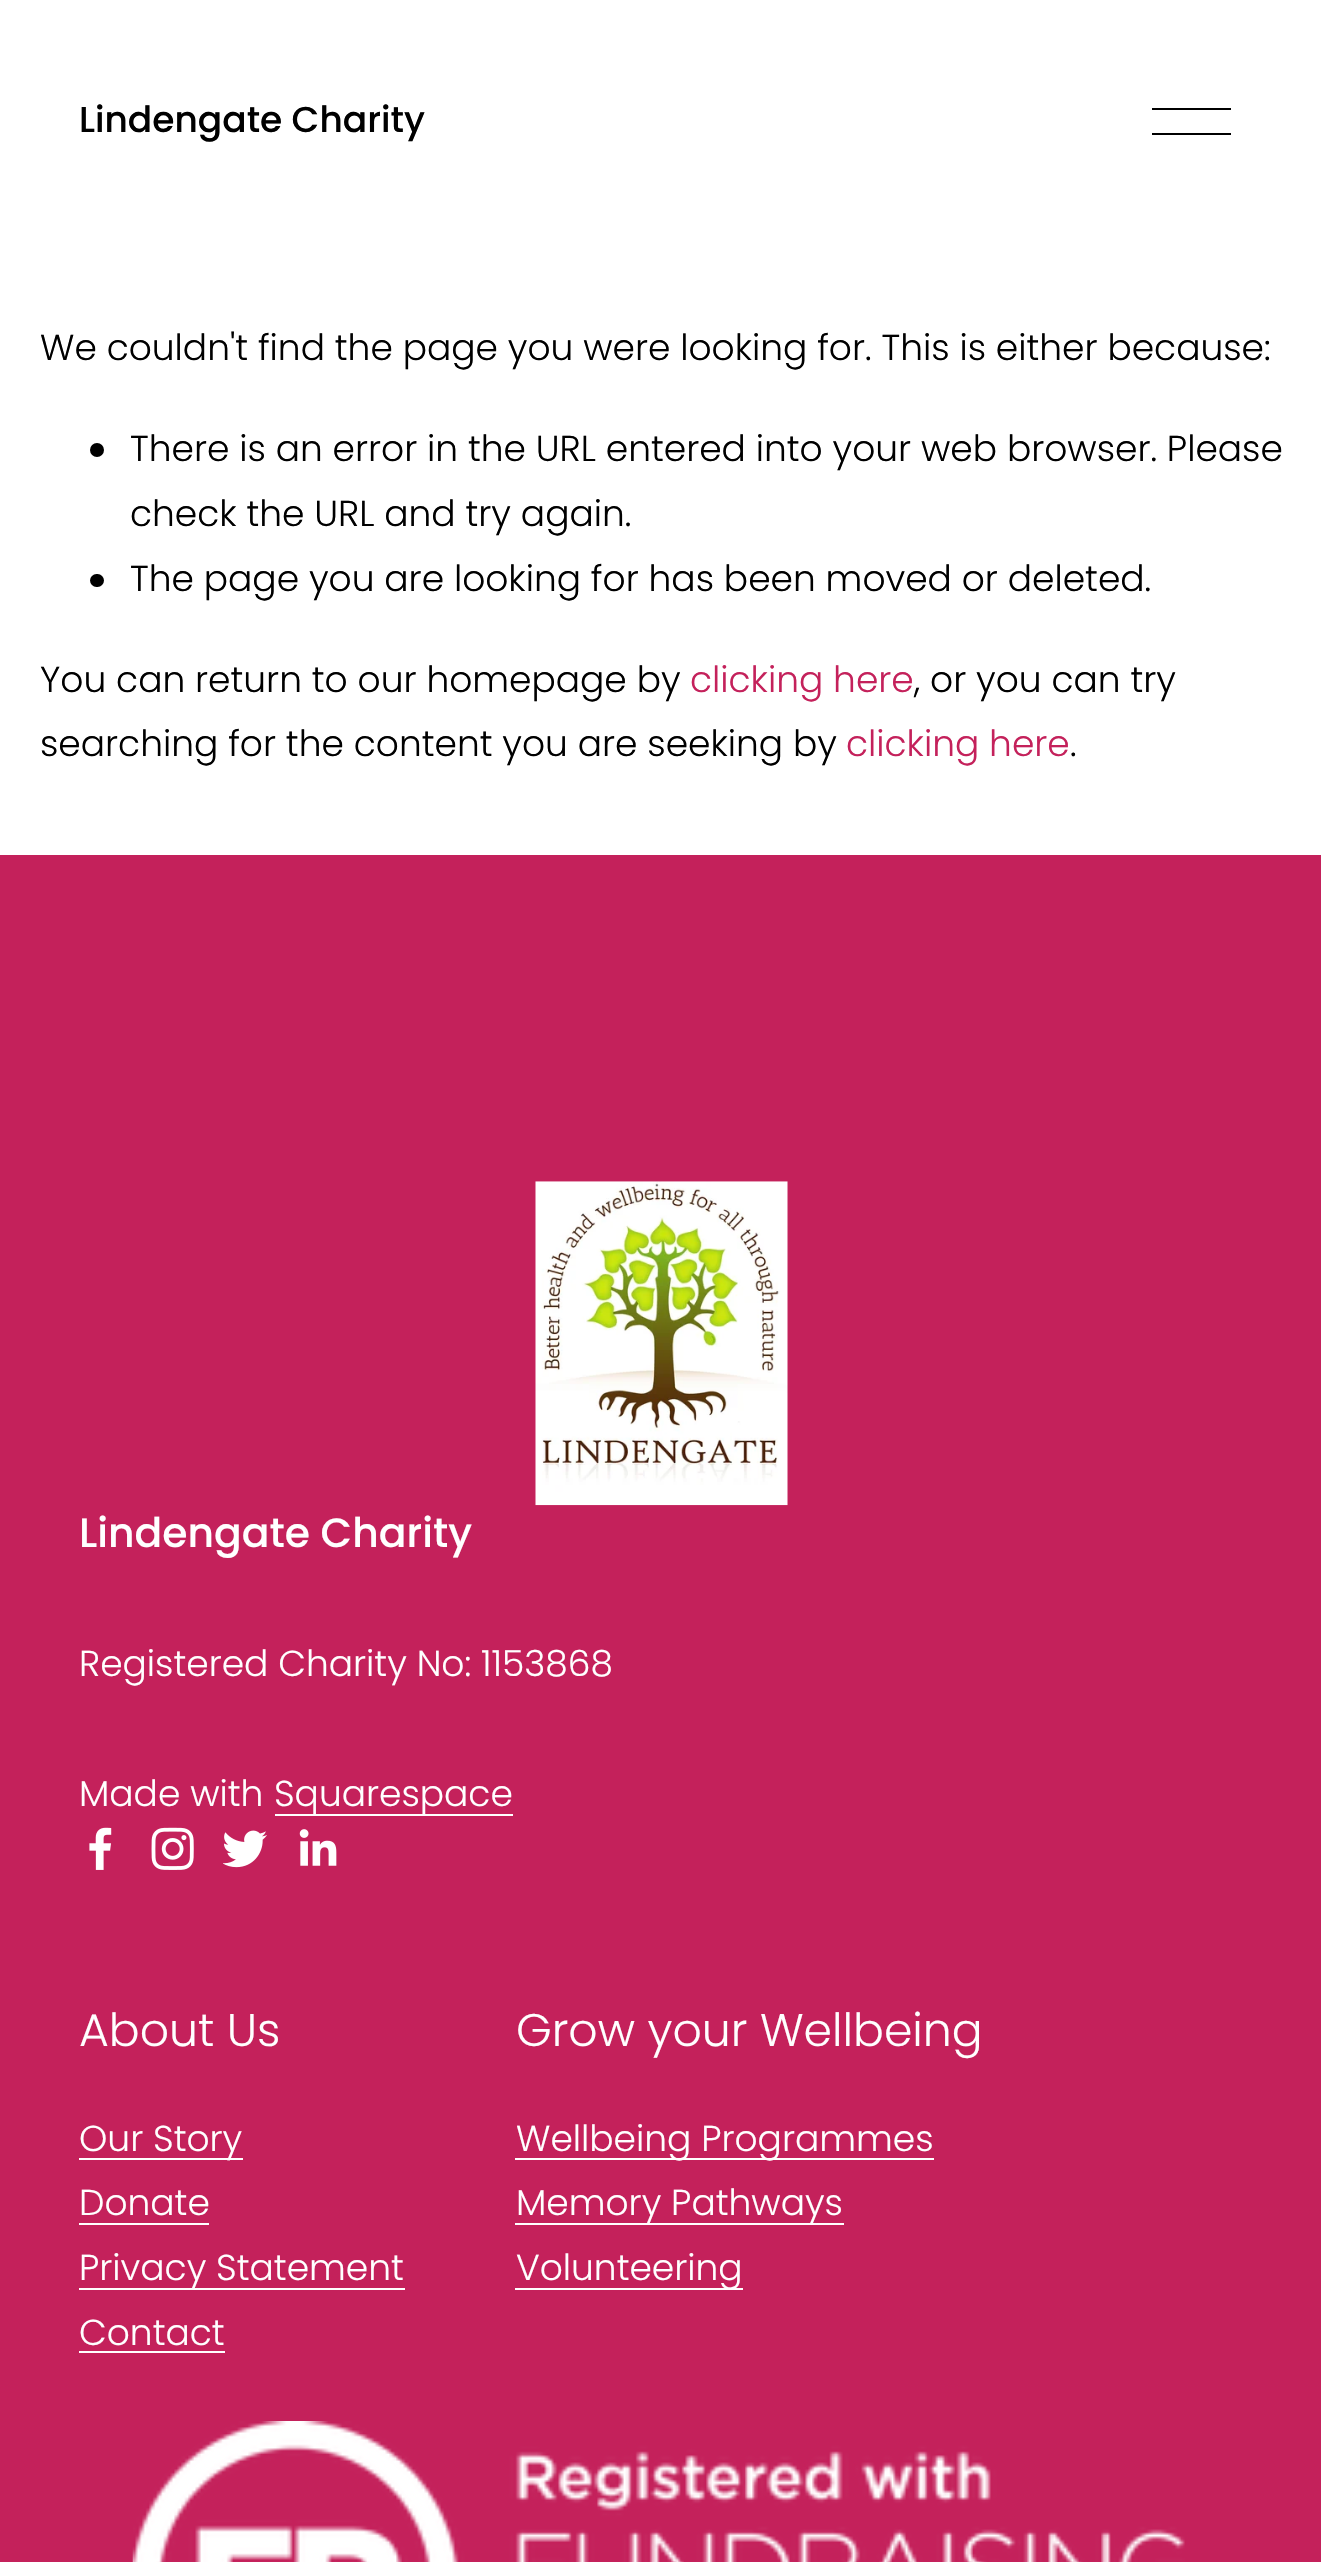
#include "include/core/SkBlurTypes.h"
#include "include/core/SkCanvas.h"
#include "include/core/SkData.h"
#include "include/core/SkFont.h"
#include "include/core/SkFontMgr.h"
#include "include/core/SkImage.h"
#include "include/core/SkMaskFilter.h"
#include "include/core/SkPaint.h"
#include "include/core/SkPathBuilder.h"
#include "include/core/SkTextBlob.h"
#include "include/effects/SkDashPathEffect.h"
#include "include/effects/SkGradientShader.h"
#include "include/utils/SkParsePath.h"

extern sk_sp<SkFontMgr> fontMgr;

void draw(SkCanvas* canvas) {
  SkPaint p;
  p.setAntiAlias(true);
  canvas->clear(SK_ColorWHITE);
  p.setColor(SK_ColorBLACK);
  canvas->drawRect(SkRect::MakeLTRB(1152, 108, 1231, 110), p);
  canvas->drawRect(SkRect::MakeLTRB(1152, 133, 1231, 135), p);
  canvas->drawCircle(97, 450, 7, p);
  canvas->drawRoundRect(SkRect::MakeLTRB(90, 574, 104, 587), 6.5f, 6.5f, p);
  p.setColor(SkColorSetRGB(196, 33, 91));
  canvas->drawRect(SkRect::MakeLTRB(0, 855, 1321, 2562), p);
  canvas->drawImageRect(SkImages::DeferredFromEncodedData(SkData::MakeFromFileName("images/1.png")), SkRect::MakeLTRB(535, 1181, 788, 1506), SkSamplingOptions());
  p.setColor(SK_ColorWHITE);
  canvas->drawRect(SkRect::MakeLTRB(275, 1814, 513, 1816), p);
  canvas->drawImageRect(SkImages::DeferredFromEncodedData(SkData::MakeFromFileName("images/2.png")), SkRect::MakeLTRB(89, 1827, 112, 1870), SkSamplingOptions());
  canvas->drawImageRect(SkImages::DeferredFromEncodedData(SkData::MakeFromFileName("images/3.png")), SkRect::MakeLTRB(151, 1827, 194, 1870), SkSamplingOptions());
  canvas->drawImageRect(SkImages::DeferredFromEncodedData(SkData::MakeFromFileName("images/4.png")), SkRect::MakeLTRB(223, 1830, 267, 1868), SkSamplingOptions());
  canvas->drawImageRect(SkImages::DeferredFromEncodedData(SkData::MakeFromFileName("images/5.png")), SkRect::MakeLTRB(299, 1829, 337, 1866), SkSamplingOptions());
  canvas->drawRect(SkRect::MakeLTRB(79, 2158, 243, 2160), p);
  canvas->drawRect(SkRect::MakeLTRB(79, 2223, 209, 2225), p);
  canvas->drawRect(SkRect::MakeLTRB(79, 2288, 405, 2290), p);
  canvas->drawRect(SkRect::MakeLTRB(79, 2351, 225, 2353), p);
  canvas->drawRect(SkRect::MakeLTRB(515, 2158, 934, 2160), p);
  canvas->drawRect(SkRect::MakeLTRB(515, 2223, 844, 2225), p);
  canvas->drawRect(SkRect::MakeLTRB(515, 2288, 743, 2290), p);
  canvas->drawImageRect(SkImages::DeferredFromEncodedData(SkData::MakeFromFileName("images/6.png")), SkRect::MakeLTRB(132, 2421, 1185, 2562), SkSamplingOptions());
  SkFont font1(fontMgr->matchFamilyStyle("Poppins", SkFontStyle(500, SkFontStyle::kNormal_Width, SkFontStyle::kUpright_Slant)), 36);
  font1.setSubpixel(true);
  p.setColor(SK_ColorBLACK);
  canvas->drawString("Lindengate Charity", 79, 132, font1, p);
  SkFont font2(fontMgr->matchFamilyStyle("Poppins", SkFontStyle(300, SkFontStyle::kNormal_Width, SkFontStyle::kUpright_Slant)), 36);
  font2.setSubpixel(true);
  canvas->drawString("We couldn't find the page you were looking for. This is either because:", 40, 360, font2, p);
  canvas->drawString("There is an error in the URL entered into your web browser. Please", 130, 461, font2, p);
  canvas->drawString("check the URL and try again.", 130, 526, font2, p);
  canvas->drawString("The page you are looking for has been moved or deleted.", 130, 591, font2, p);
  canvas->drawString("You can return to our homepage by", 40, 692, font2, p);
  p.setColor(SkColorSetRGB(196, 33, 91));
  canvas->drawString("clicking here", 690, 692, font2, p);
  p.setColor(SK_ColorBLACK);
  canvas->drawString(", or you can try", 914, 692, font2, p);
  canvas->drawString("searching for the content you are seeking by", 40, 756, font2, p);
  p.setColor(SkColorSetRGB(196, 33, 91));
  canvas->drawString("clicking here", 846, 756, font2, p);
  p.setColor(SK_ColorBLACK);
  canvas->drawString(".", 1070, 756, font2, p);
  SkFont font3(fontMgr->matchFamilyStyle("Poppins", SkFontStyle(500, SkFontStyle::kNormal_Width, SkFontStyle::kUpright_Slant)), 40.9f);
  font3.setSubpixel(true);
  p.setColor(SK_ColorWHITE);
  canvas->drawString("Lindengate Charity", 79, 1547, font3, p);
  canvas->drawString("Registered Charity No: 1153868", 79, 1676, font2, p);
  canvas->drawString("Made with", 79, 1806, font2, p);
  canvas->drawString("Squarespace", 274, 1806, font2, p);
  SkFont font4(fontMgr->matchFamilyStyle("Poppins", SkFontStyle(300, SkFontStyle::kNormal_Width, SkFontStyle::kUpright_Slant)), 45.75f);
  font4.setSubpixel(true);
  canvas->drawString("About Us", 79, 2046, font4, p);
  canvas->drawString("Our Story", 79, 2151, font2, p);
  canvas->drawString("Donate", 79, 2215, font2, p);
  canvas->drawString("Privacy Statement", 79, 2280, font2, p);
  canvas->drawString("Contact", 79, 2345, font2, p);
  canvas->drawString("Grow your Wellbeing", 516, 2046, font4, p);
  canvas->drawString("Wellbeing Programmes", 516, 2151, font2, p);
  canvas->drawString("Memory Pathways", 516, 2215, font2, p);
  canvas->drawString("Volunteering", 516, 2280, font2, p);
}
